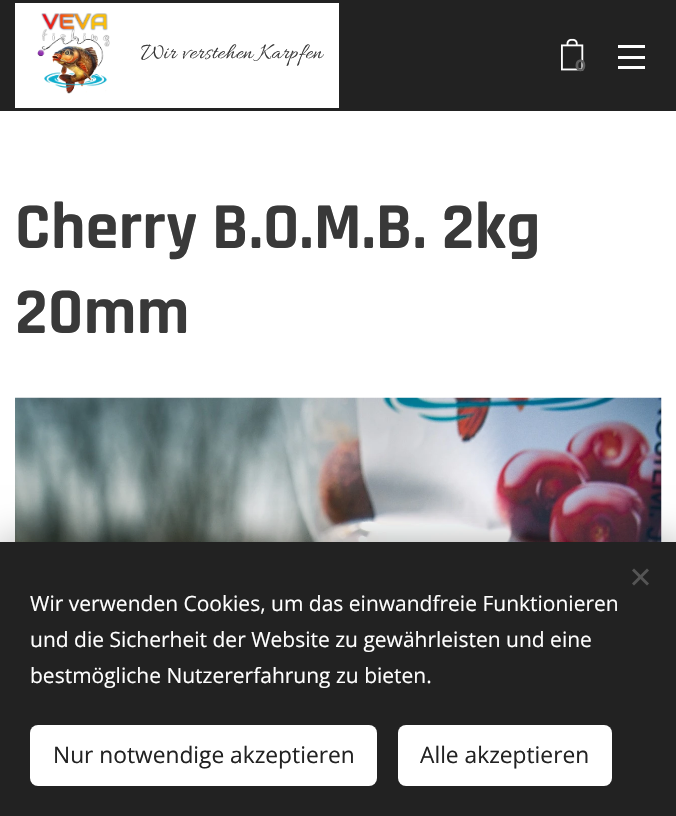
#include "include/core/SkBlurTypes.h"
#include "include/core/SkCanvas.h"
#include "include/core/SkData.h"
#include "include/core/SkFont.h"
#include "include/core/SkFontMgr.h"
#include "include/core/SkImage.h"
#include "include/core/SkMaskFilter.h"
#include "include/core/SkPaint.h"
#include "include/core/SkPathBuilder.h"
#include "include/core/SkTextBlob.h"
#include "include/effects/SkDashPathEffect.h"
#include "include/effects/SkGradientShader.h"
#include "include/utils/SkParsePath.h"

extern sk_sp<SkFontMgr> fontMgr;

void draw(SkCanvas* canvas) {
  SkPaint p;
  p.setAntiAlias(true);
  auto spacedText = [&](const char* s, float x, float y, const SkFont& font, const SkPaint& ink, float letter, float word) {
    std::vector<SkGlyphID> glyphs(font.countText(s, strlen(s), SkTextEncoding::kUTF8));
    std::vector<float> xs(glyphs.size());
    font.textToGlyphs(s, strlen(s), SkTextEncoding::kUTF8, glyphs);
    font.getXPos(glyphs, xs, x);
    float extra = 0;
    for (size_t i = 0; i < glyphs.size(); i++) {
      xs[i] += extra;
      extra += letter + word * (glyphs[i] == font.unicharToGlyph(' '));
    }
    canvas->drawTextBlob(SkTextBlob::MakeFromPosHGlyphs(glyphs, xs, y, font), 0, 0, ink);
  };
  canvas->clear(SK_ColorWHITE);
  p.setColor(SkColorSetRGB(34, 34, 34));
  canvas->drawRect(SkRect::MakeLTRB(0, 0, 676, 111), p);
  p.setColor(SK_ColorWHITE);
  canvas->drawRect(SkRect::MakeLTRB(15, 3, 339, 108), p);
  canvas->drawImageRect(SkImages::DeferredFromEncodedData(SkData::MakeFromFileName("images/1.png")), SkRect::MakeLTRB(37, 13, 110, 94), SkSamplingOptions());
  canvas->drawImageRect(SkImages::DeferredFromEncodedData(SkData::MakeFromFileName("images/2.png")), SkRect::MakeLTRB(561, 38, 584, 71), SkSamplingOptions());
  canvas->drawRect(SkRect::MakeLTRB(618, 56, 645, 59), p);
  canvas->drawRect(SkRect::MakeLTRB(618, 45, 645, 48), p);
  canvas->drawRect(SkRect::MakeLTRB(618, 66, 645, 69), p);
  canvas->drawImageRect(SkImages::DeferredFromEncodedData(SkData::MakeFromFileName("images/3.png")), SkRect::MakeLTRB(15, 397, 662, 542), SkSamplingOptions());
  p.setColor(SkColorSetARGB(84, 0, 0, 0));
  p.setMaskFilter(SkMaskFilter::MakeBlur(kNormal_SkBlurStyle, 19));
  canvas->drawRect(SkRect::MakeLTRB(0, 542, 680, 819), p);
  p.setMaskFilter(nullptr);
  p.setColor(SkColorSetRGB(34, 34, 34));
  canvas->drawRect(SkRect::MakeLTRB(0, 542, 676, 816), p);
  p.setColor(SkColorSetRGB(85, 85, 85));
  canvas->drawPath(SkPathBuilder().moveTo(632, 583.5f).lineTo(647, 568.5f).lineTo(649, 570.5f).lineTo(634, 585.5f).close().detach(), p);
  canvas->drawPath(SkPathBuilder().moveTo(634, 568.5f).lineTo(649, 583.5f).lineTo(647, 585.5f).lineTo(632, 570.5f).close().detach(), p);
  p.setColor(SK_ColorWHITE);
  canvas->drawRoundRect(SkRect::MakeLTRB(30, 725, 377, 786), 8, 8, p);
  canvas->drawRoundRect(SkRect::MakeLTRB(398, 725, 612, 786), 8, 8, p);
  SkFont font1(fontMgr->matchFamilyStyle("Allura", SkFontStyle::Normal()), 22.75f);
  font1.setSubpixel(true);
  p.setColor(SkColorSetRGB(57, 57, 57));
  spacedText("Wir verstehen Karpfen", 141, 58, font1, p, 0.4f, 0);
  SkFont font2(fontMgr->matchFamilyStyle("Montserrat", SkFontStyle::Bold()), 16);
  font2.setSubpixel(true);
  p.setColor(SkColorSetRGB(95, 95, 95));
  canvas->drawString("0", 575, 71, font2, p);
  SkFont font3(fontMgr->matchFamilyStyle("Rajdhani", SkFontStyle::Bold()), 66);
  font3.setSubpixel(true);
  p.setColor(SkColorSetRGB(57, 57, 57));
  spacedText("Cherry B.O.M.B. 2kg", 15, 248, font3, p, 0.4f, 0);
  spacedText("20mm", 15, 333, font3, p, 0.4f, 0);
  SkFont font4(fontMgr->matchFamilyStyle("Open Sans", SkFontStyle::Normal()), 21);
  font4.setSubpixel(true);
  p.setColor(SK_ColorWHITE);
  canvas->drawString("Wir verwenden Cookies, um das einwandfreie Funktionieren", 30, 611, font4, p);
  canvas->drawString("und die Sicherheit der Website zu gewährleisten und eine", 30, 647, font4, p);
  canvas->drawString("bestmögliche Nutzererfahrung zu bieten.", 30, 683, font4, p);
  SkFont font5(fontMgr->matchFamilyStyle("Open Sans", SkFontStyle::Normal()), 22.75f);
  font5.setSubpixel(true);
  p.setColor(SkColorSetRGB(34, 34, 34));
  canvas->drawString("Nur notwendige akzeptieren", 53, 763, font5, p);
  canvas->drawString("Alle akzeptieren", 420, 763, font5, p);
}
